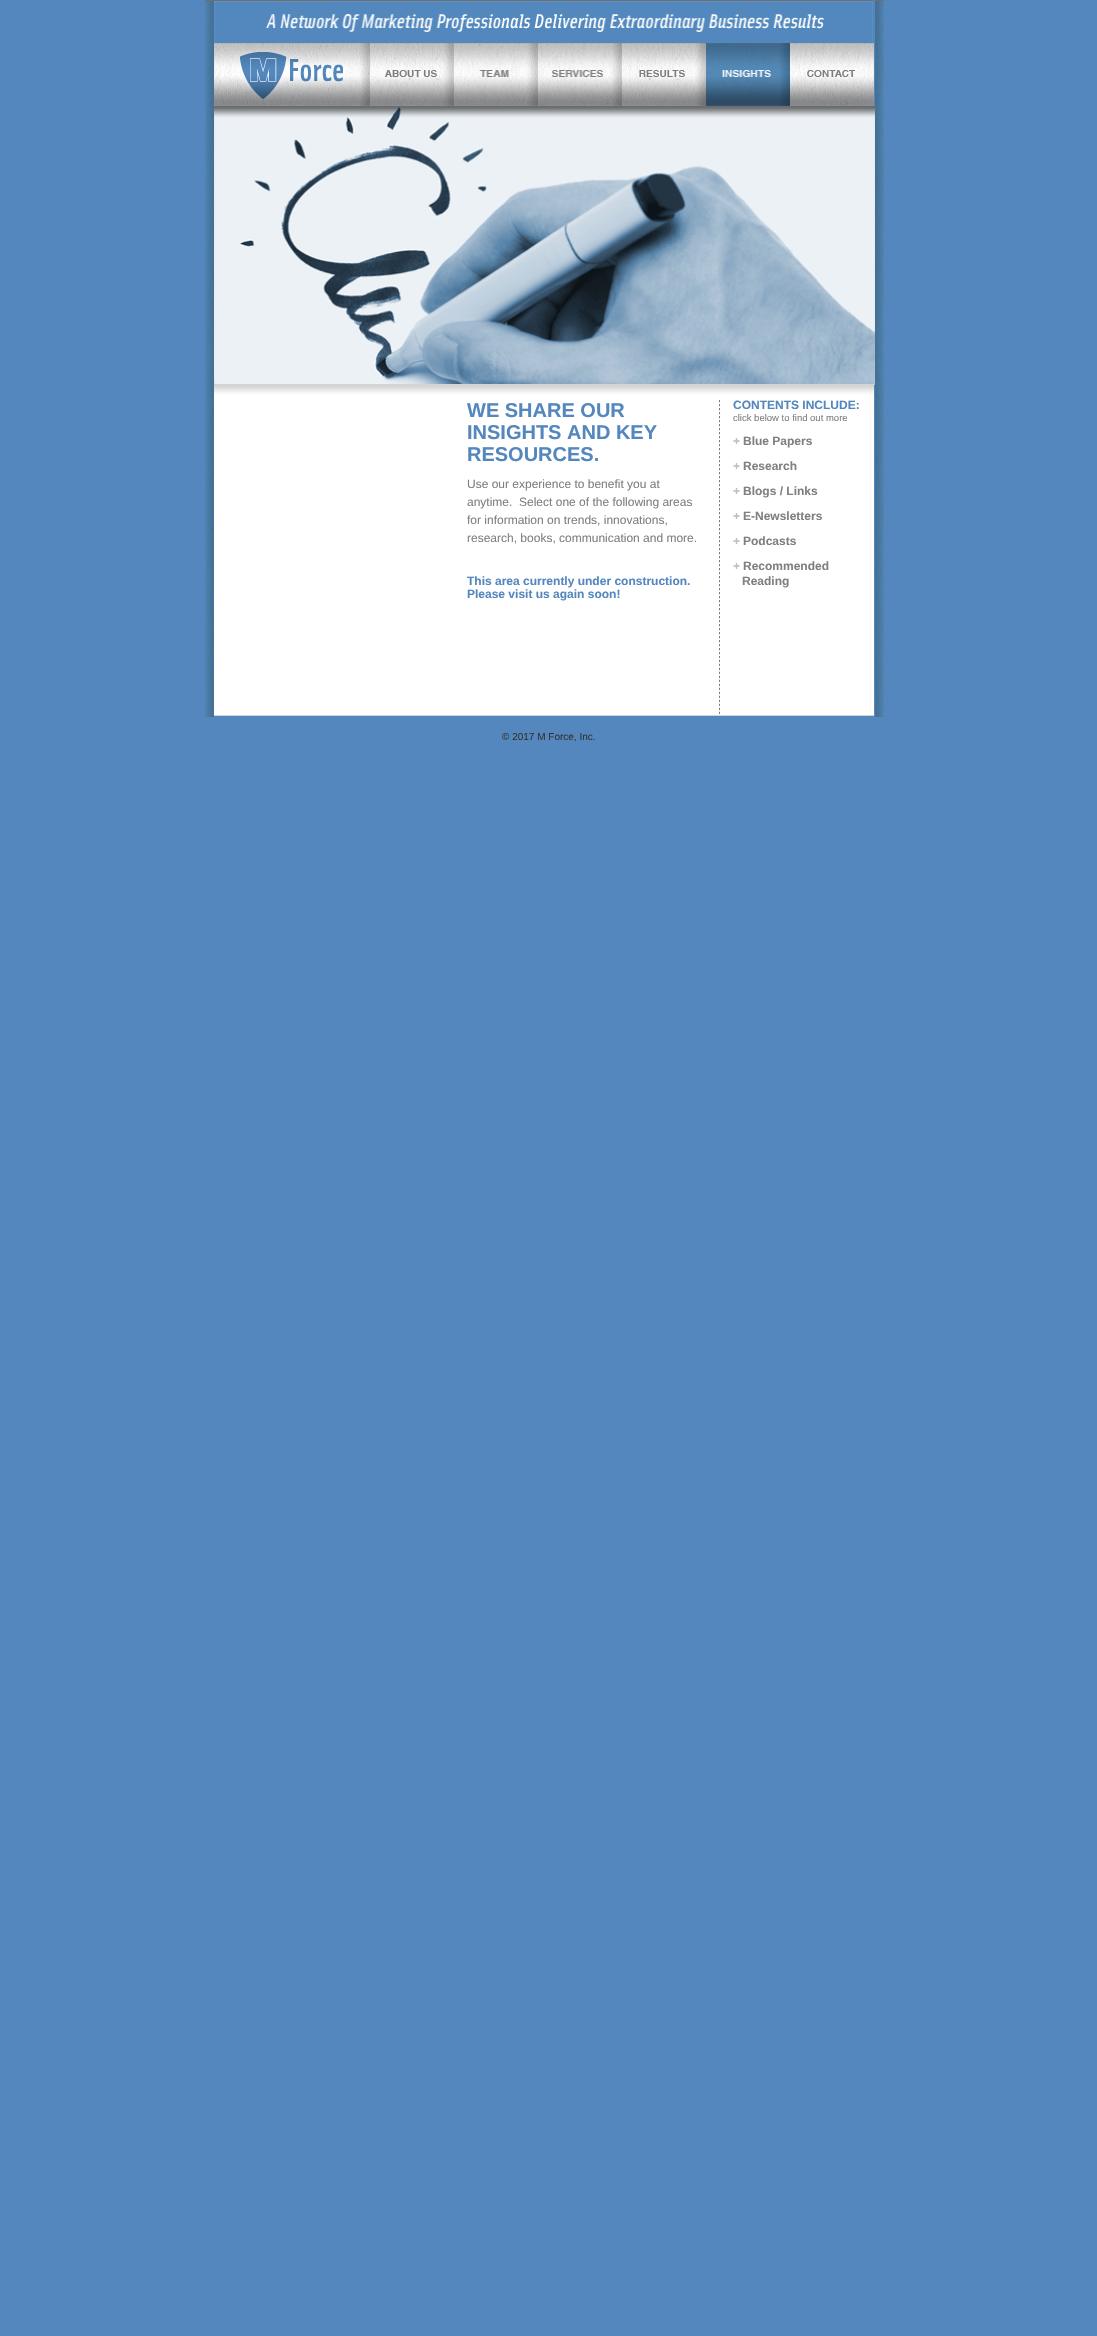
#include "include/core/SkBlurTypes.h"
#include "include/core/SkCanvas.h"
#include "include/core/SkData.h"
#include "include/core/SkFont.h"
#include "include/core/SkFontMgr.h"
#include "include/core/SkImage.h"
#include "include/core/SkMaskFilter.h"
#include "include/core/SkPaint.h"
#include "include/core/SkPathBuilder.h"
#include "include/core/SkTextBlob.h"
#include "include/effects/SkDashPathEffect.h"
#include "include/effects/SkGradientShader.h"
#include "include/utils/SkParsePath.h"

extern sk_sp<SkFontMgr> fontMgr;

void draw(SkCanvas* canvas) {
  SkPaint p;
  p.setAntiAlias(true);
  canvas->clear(SkColorSetRGB(83, 135, 189));
  canvas->drawImageRect(SkImages::DeferredFromEncodedData(SkData::MakeFromFileName("images/1.png")), SkRect::MakeLTRB(205, 0, 214, 717), SkSamplingOptions());
  canvas->drawImageRect(SkImages::DeferredFromEncodedData(SkData::MakeFromFileName("images/2.png")), SkRect::MakeLTRB(214, 0, 873, 43), SkSamplingOptions());
  canvas->drawImageRect(SkImages::DeferredFromEncodedData(SkData::MakeFromFileName("images/3.png")), SkRect::MakeLTRB(875, 0, 884, 717), SkSamplingOptions());
  canvas->drawImageRect(SkImages::DeferredFromEncodedData(SkData::MakeFromFileName("images/4.png")), SkRect::MakeLTRB(214, 43, 370, 106), SkSamplingOptions());
  canvas->drawImageRect(SkImages::DeferredFromEncodedData(SkData::MakeFromFileName("images/5.png")), SkRect::MakeLTRB(370, 43, 454, 106), SkSamplingOptions());
  canvas->drawImageRect(SkImages::DeferredFromEncodedData(SkData::MakeFromFileName("images/6.png")), SkRect::MakeLTRB(454, 43, 538, 106), SkSamplingOptions());
  canvas->drawImageRect(SkImages::DeferredFromEncodedData(SkData::MakeFromFileName("images/7.png")), SkRect::MakeLTRB(538, 43, 622, 106), SkSamplingOptions());
  canvas->drawImageRect(SkImages::DeferredFromEncodedData(SkData::MakeFromFileName("images/8.png")), SkRect::MakeLTRB(622, 43, 706, 106), SkSamplingOptions());
  canvas->drawImageRect(SkImages::DeferredFromEncodedData(SkData::MakeFromFileName("images/9.png")), SkRect::MakeLTRB(706, 43, 790, 106), SkSamplingOptions());
  canvas->drawImageRect(SkImages::DeferredFromEncodedData(SkData::MakeFromFileName("images/10.png")), SkRect::MakeLTRB(790, 43, 874, 106), SkSamplingOptions());
  canvas->drawImageRect(SkImages::DeferredFromEncodedData(SkData::MakeFromFileName("images/11.png")), SkRect::MakeLTRB(214, 106, 875, 385), SkSamplingOptions());
  canvas->drawImageRect(SkImages::DeferredFromEncodedData(SkData::MakeFromFileName("images/12.png")), SkRect::MakeLTRB(214, 384, 460, 716), SkSamplingOptions());
  canvas->drawImageRect(SkImages::DeferredFromEncodedData(SkData::MakeFromFileName("images/13.png")), SkRect::MakeLTRB(460, 384, 874, 716), SkSamplingOptions());
  SkFont font1(fontMgr->matchFamilyStyle("Liberation Sans", SkFontStyle::Bold()), 20);
  font1.setSubpixel(true);
  p.setColor(SkColorSetRGB(83, 135, 189));
  canvas->drawString("WE SHARE OUR", 467, 417, font1, p);
  canvas->drawString("INSIGHTS AND KEY", 467, 439, font1, p);
  canvas->drawString("RESOURCES.", 467, 461, font1, p);
  SkFont font2(fontMgr->matchFamilyStyle("Liberation Sans", SkFontStyle::Normal()), 12);
  font2.setSubpixel(true);
  p.setColor(SkColorSetRGB(128, 127, 131));
  canvas->drawString("Use our experience to benefit you at", 467, 488, font2, p);
  canvas->drawString("anytime.  Select one of the following areas", 467, 506, font2, p);
  canvas->drawString("for information on trends, innovations,", 467, 524, font2, p);
  canvas->drawString("research, books, communication and more.", 467, 542, font2, p);
  SkFont font3(fontMgr->matchFamilyStyle("Liberation Sans", SkFontStyle::Bold()), 12);
  font3.setSubpixel(true);
  p.setColor(SkColorSetRGB(83, 135, 189));
  canvas->drawString("This area currently under construction.", 467, 585, font3, p);
  canvas->drawString("Please visit us again soon!", 467, 598, font3, p);
  canvas->drawString("CONTENTS INCLUDE:", 733, 409, font3, p);
  SkFont font4(fontMgr->matchFamilyStyle("Liberation Sans", SkFontStyle::Normal()), 9.5f);
  font4.setSubpixel(true);
  p.setColor(SkColorSetRGB(128, 127, 131));
  canvas->drawString("click below to find out more", 733, 421, font4, p);
  p.setColor(SkColorSetRGB(188, 190, 192));
  canvas->drawString("+", 733, 445, font3, p);
  p.setColor(SkColorSetRGB(128, 127, 131));
  canvas->drawString("Blue Papers", 743, 445, font3, p);
  p.setColor(SkColorSetRGB(188, 190, 192));
  canvas->drawString("+", 733, 470, font3, p);
  p.setColor(SkColorSetRGB(128, 127, 131));
  canvas->drawString("Research", 743, 470, font3, p);
  p.setColor(SkColorSetRGB(188, 190, 192));
  canvas->drawString("+", 733, 495, font3, p);
  p.setColor(SkColorSetRGB(128, 127, 131));
  canvas->drawString("Blogs / Links", 743, 495, font3, p);
  p.setColor(SkColorSetRGB(188, 190, 192));
  canvas->drawString("+", 733, 520, font3, p);
  p.setColor(SkColorSetRGB(128, 127, 131));
  canvas->drawString("E-Newsletters", 743, 520, font3, p);
  p.setColor(SkColorSetRGB(188, 190, 192));
  canvas->drawString("+", 733, 545, font3, p);
  p.setColor(SkColorSetRGB(128, 127, 131));
  canvas->drawString("Podcasts", 743, 545, font3, p);
  p.setColor(SkColorSetRGB(188, 190, 192));
  canvas->drawString("+", 733, 570, font3, p);
  p.setColor(SkColorSetRGB(128, 127, 131));
  canvas->drawString("Recommended", 743, 570, font3, p);
  canvas->drawString("Reading", 742, 585, font3, p);
  SkFont font5(fontMgr->matchFamilyStyle("Liberation Sans", SkFontStyle::Normal()), 10);
  font5.setSubpixel(true);
  p.setColor(SkColorSetRGB(51, 51, 51));
  canvas->drawString("© 2017 M Force, Inc.", 502, 740, font5, p);
}
